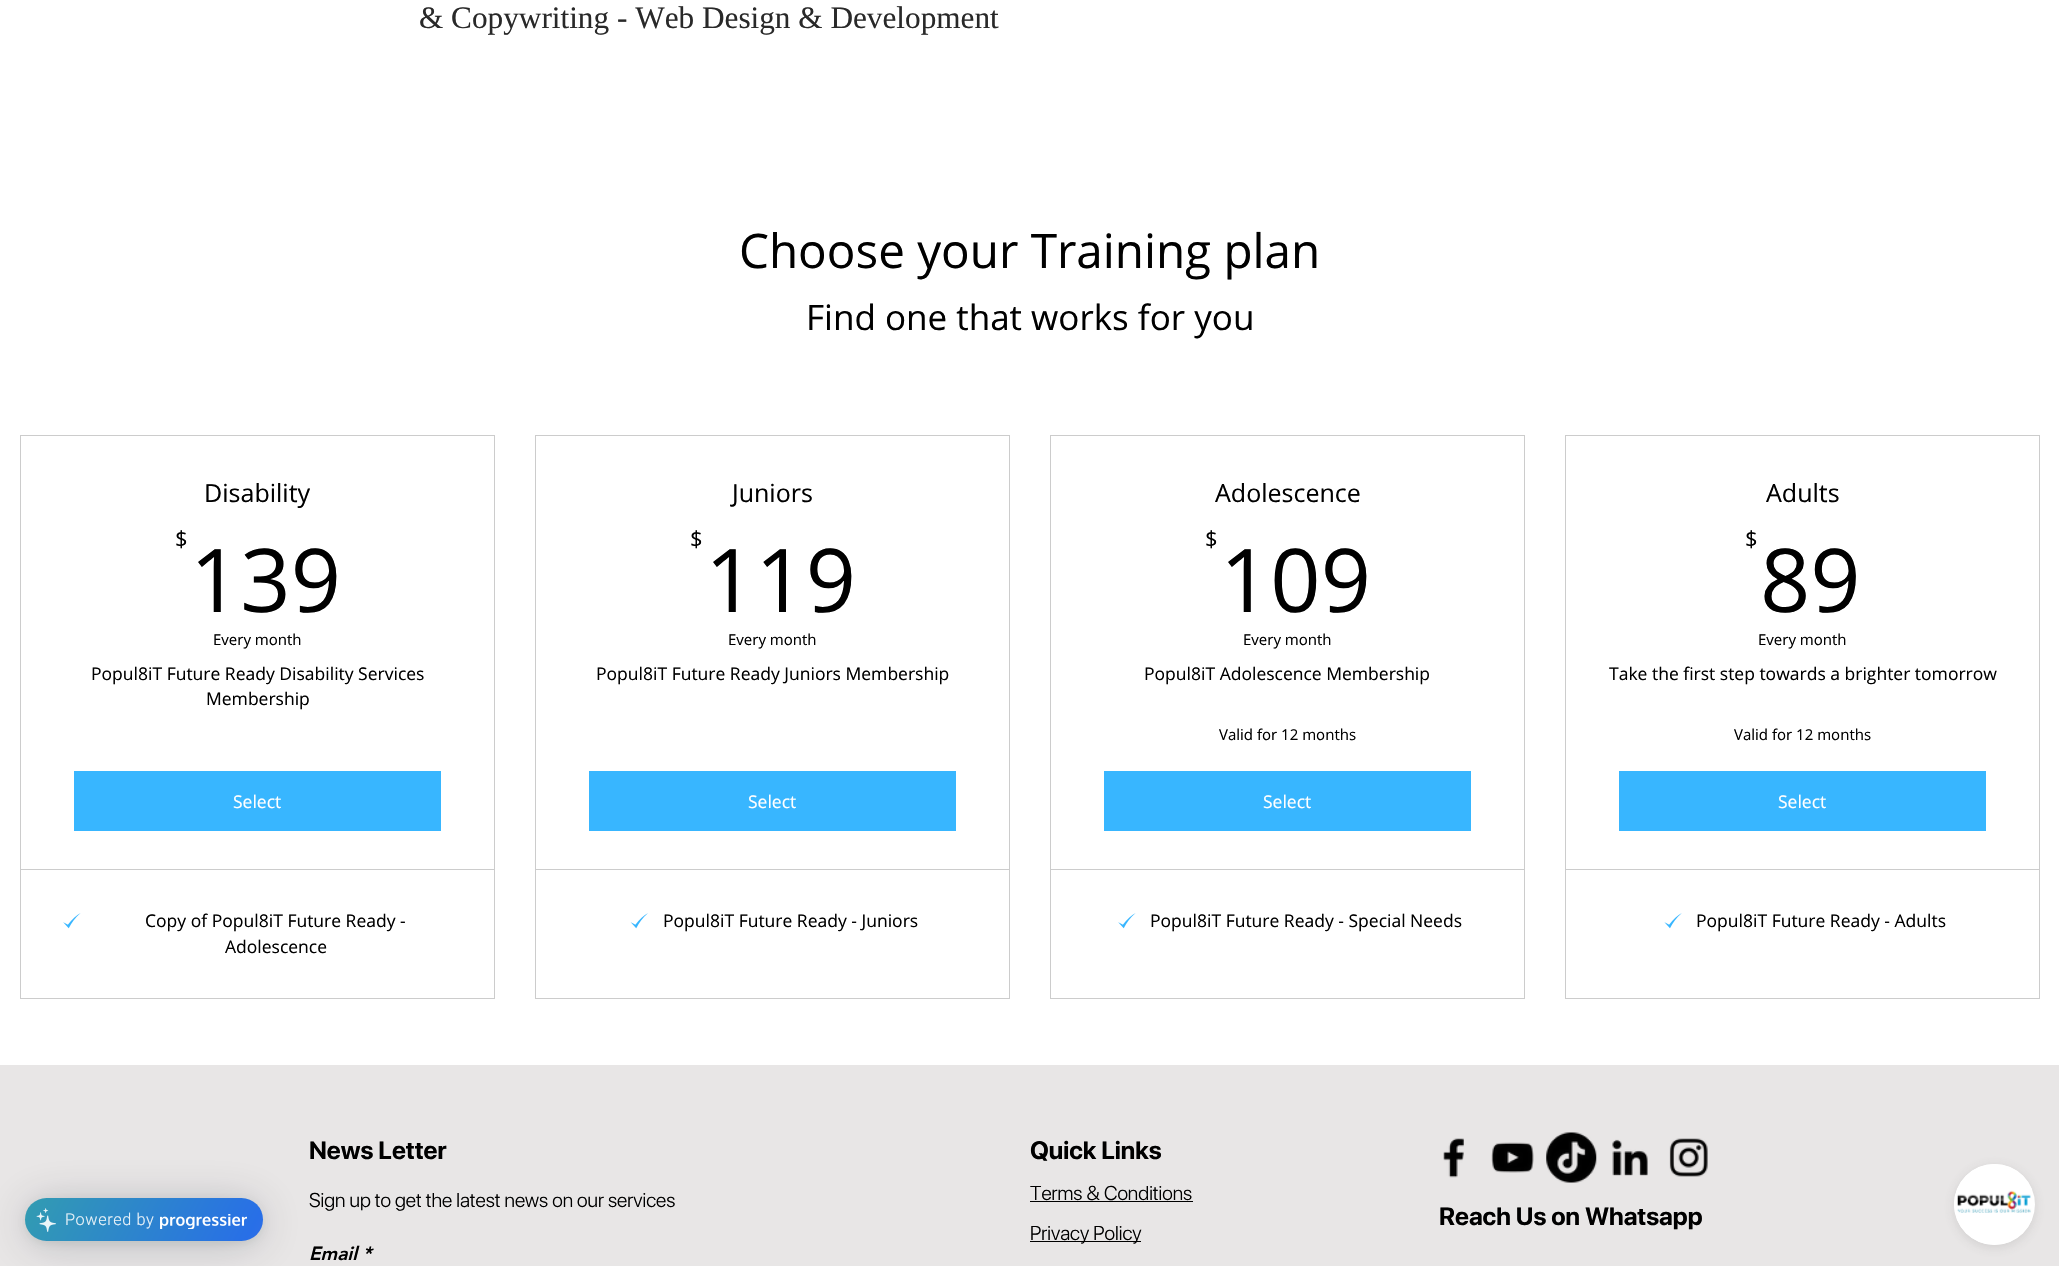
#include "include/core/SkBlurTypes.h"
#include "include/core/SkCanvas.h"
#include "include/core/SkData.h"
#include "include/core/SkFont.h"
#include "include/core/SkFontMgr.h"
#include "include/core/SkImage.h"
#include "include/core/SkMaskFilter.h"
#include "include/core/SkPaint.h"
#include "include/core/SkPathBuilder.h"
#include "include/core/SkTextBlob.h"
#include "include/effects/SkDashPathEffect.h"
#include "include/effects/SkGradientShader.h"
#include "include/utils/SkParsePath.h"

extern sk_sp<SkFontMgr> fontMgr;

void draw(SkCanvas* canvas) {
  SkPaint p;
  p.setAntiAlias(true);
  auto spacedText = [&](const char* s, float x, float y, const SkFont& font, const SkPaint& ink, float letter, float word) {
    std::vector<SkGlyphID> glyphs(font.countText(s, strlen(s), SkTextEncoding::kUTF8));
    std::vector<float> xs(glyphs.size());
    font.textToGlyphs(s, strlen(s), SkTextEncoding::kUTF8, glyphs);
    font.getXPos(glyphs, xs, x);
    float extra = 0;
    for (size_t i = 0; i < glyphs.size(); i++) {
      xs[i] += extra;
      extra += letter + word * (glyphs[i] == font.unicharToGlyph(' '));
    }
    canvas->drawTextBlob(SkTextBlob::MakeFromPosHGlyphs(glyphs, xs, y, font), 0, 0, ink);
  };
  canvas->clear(SK_ColorWHITE);
  p.setStyle(SkPaint::kStroke_Style);
  p.setStrokeWidth(1);
  p.setColor(SkColorSetRGB(204, 204, 204));
  canvas->drawRect(SkRect::MakeLTRB(20.5f, 435.5f, 494.5f, 998.5f), p);
  p.setStyle(SkPaint::kFill_Style);
  p.setColor(SkColorSetRGB(56, 182, 255));
  canvas->drawRect(SkRect::MakeLTRB(74, 771, 441, 831), p);
  p.setColor(SkColorSetRGB(204, 204, 204));
  canvas->drawRect(SkRect::MakeLTRB(21, 869, 494, 870), p);
  canvas->drawImageRect(SkImages::DeferredFromEncodedData(SkData::MakeFromFileName("images/1.png")), SkRect::MakeLTRB(63, 913, 81, 929), SkSamplingOptions());
  p.setStyle(SkPaint::kStroke_Style);
  canvas->drawRect(SkRect::MakeLTRB(535.5f, 435.5f, 1009.5f, 998.5f), p);
  p.setStyle(SkPaint::kFill_Style);
  p.setColor(SkColorSetRGB(56, 182, 255));
  canvas->drawRect(SkRect::MakeLTRB(589, 771, 956, 831), p);
  p.setColor(SkColorSetRGB(204, 204, 204));
  canvas->drawRect(SkRect::MakeLTRB(536, 869, 1009, 870), p);
  canvas->drawImageRect(SkImages::DeferredFromEncodedData(SkData::MakeFromFileName("images/2.png")), SkRect::MakeLTRB(630, 913, 648, 929), SkSamplingOptions());
  p.setStyle(SkPaint::kStroke_Style);
  canvas->drawRect(SkRect::MakeLTRB(1050.5f, 435.5f, 1524.5f, 998.5f), p);
  p.setStyle(SkPaint::kFill_Style);
  p.setColor(SkColorSetRGB(56, 182, 255));
  canvas->drawRect(SkRect::MakeLTRB(1104, 771, 1471, 831), p);
  p.setColor(SkColorSetRGB(204, 204, 204));
  canvas->drawRect(SkRect::MakeLTRB(1051, 869, 1524, 870), p);
  canvas->drawImageRect(SkImages::DeferredFromEncodedData(SkData::MakeFromFileName("images/1.png")), SkRect::MakeLTRB(1118, 913, 1136, 929), SkSamplingOptions());
  p.setStyle(SkPaint::kStroke_Style);
  canvas->drawRect(SkRect::MakeLTRB(1565.5f, 435.5f, 2039.5f, 998.5f), p);
  p.setStyle(SkPaint::kFill_Style);
  p.setColor(SkColorSetRGB(56, 182, 255));
  canvas->drawRect(SkRect::MakeLTRB(1619, 771, 1986, 831), p);
  p.setColor(SkColorSetRGB(204, 204, 204));
  canvas->drawRect(SkRect::MakeLTRB(1566, 869, 2039, 870), p);
  canvas->drawImageRect(SkImages::DeferredFromEncodedData(SkData::MakeFromFileName("images/3.png")), SkRect::MakeLTRB(1664, 913, 1682, 929), SkSamplingOptions());
  p.setColor(SkColorSetRGB(232, 230, 230));
  canvas->drawRect(SkRect::MakeLTRB(0, 1065, 2059, 1266), p);
  p.setColor(SK_ColorBLACK);
  canvas->drawRect(SkRect::MakeLTRB(1030, 1201, 1193, 1202), p);
  canvas->drawRect(SkRect::MakeLTRB(1030, 1241, 1141, 1242), p);
  canvas->drawImageRect(SkImages::DeferredFromEncodedData(SkData::MakeFromFileName("images/4.png")), SkRect::MakeLTRB(1443, 1138, 1464, 1178), SkSamplingOptions());
  canvas->drawImageRect(SkImages::DeferredFromEncodedData(SkData::MakeFromFileName("images/5.png")), SkRect::MakeLTRB(1491, 1142, 1534, 1173), SkSamplingOptions());
  canvas->drawImageRect(SkImages::DeferredFromEncodedData(SkData::MakeFromFileName("images/6.png")), SkRect::MakeLTRB(1546, 1132, 1597, 1183), SkSamplingOptions());
  canvas->drawImageRect(SkImages::DeferredFromEncodedData(SkData::MakeFromFileName("images/7.png")), SkRect::MakeLTRB(1612, 1139, 1648, 1176), SkSamplingOptions());
  canvas->drawImageRect(SkImages::DeferredFromEncodedData(SkData::MakeFromFileName("images/8.png")), SkRect::MakeLTRB(1669, 1138, 1708, 1177), SkSamplingOptions());
  p.setColor(SkColorSetARGB(51, 7, 21, 41));
  p.setMaskFilter(SkMaskFilter::MakeBlur(kNormal_SkBlurStyle, 22));
  canvas->drawRoundRect(SkRect::MakeLTRB(25, 1201, 263, 1245), 22, 22, p);
  p.setMaskFilter(nullptr);
  p.setColor(SkColorSetARGB(20, 15, 41, 14));
  p.setMaskFilter(SkMaskFilter::MakeBlur(kNormal_SkBlurStyle, 5));
  canvas->drawRoundRect(SkRect::MakeLTRB(25, 1200, 263, 1244), 22, 22, p);
  p.setMaskFilter(nullptr);
  {
    const SkColor colors[] = {SkColorSetRGB(50, 156, 177), SkColorSetRGB(40, 111, 231), SkColorSetRGB(149, 92, 242), SkColorSetRGB(40, 111, 231), SkColorSetRGB(50, 156, 177)};
    const float stops[] = {0, 0.25f, 0.5f, 0.75f, 1};
    const SkPoint ends[] = {{121, 1018}, {879, 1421}};
    p.setShader(SkGradientShader::MakeLinear(ends, colors, stops, 5, SkTileMode::kClamp));
    p.setAlpha(255);
  }
  canvas->drawRoundRect(SkRect::MakeLTRB(25, 1198, 263, 1241), 21.5f, 21.5f, p);
  canvas->drawImageRect(SkImages::DeferredFromEncodedData(SkData::MakeFromFileName("images/9.png")), SkRect::MakeLTRB(36, 1208, 56, 1232), SkSamplingOptions());
  canvas->drawImageRect(SkImages::DeferredFromEncodedData(SkData::MakeFromFileName("images/10.png")), SkRect::MakeLTRB(160, 1214, 247, 1229), SkSamplingOptions());
  p.setShader(nullptr);
  p.setColor(SkColorSetARGB(38, 82, 79, 79));
  p.setMaskFilter(SkMaskFilter::MakeBlur(kNormal_SkBlurStyle, 5.5f));
  canvas->drawRoundRect(SkRect::MakeLTRB(1954, 1166, 2035, 1248), 40.5f, 40.5f, p);
  p.setMaskFilter(nullptr);
  p.setColor(SK_ColorWHITE);
  canvas->drawCircle(1994.5f, 1204.5f, 40.5f, p);
  canvas->drawImageRect(SkImages::DeferredFromEncodedData(SkData::MakeFromFileName("images/11.png")), SkRect::MakeLTRB(1954, 1164, 2032, 1245), SkSamplingOptions());
  SkFont font1(fontMgr->matchFamilyStyle("Liberation Serif", SkFontStyle::Normal()), 31.25f);
  font1.setSubpixel(true);
  p.setColor(SkColorSetRGB(41, 41, 41));
  canvas->drawString("& Copywriting - Web Design & Development", 419, 28, font1, p);
  SkFont font2(fontMgr->matchFamilyStyle("Open Sans", SkFontStyle::Normal()), 47.5f);
  font2.setSubpixel(true);
  p.setColor(SK_ColorBLACK);
  canvas->drawString("Choose your Training plan", 739, 268, font2, p);
  SkFont font3(fontMgr->matchFamilyStyle("Open Sans", SkFontStyle::Normal()), 35);
  font3.setSubpixel(true);
  canvas->drawString("Find one that works for you", 806, 330, font3, p);
  SkFont font4(fontMgr->matchFamilyStyle("Open Sans", SkFontStyle::Normal()), 25);
  font4.setSubpixel(true);
  canvas->drawString("Disability", 204, 502, font4, p);
  SkFont font5(fontMgr->matchFamilyStyle("Open Sans", SkFontStyle::Normal()), 22);
  font5.setSubpixel(true);
  canvas->drawString("$", 175, 547, font5, p);
  SkFont font6(fontMgr->matchFamilyStyle("Open Sans", SkFontStyle::Normal()), 88);
  font6.setSubpixel(true);
  canvas->drawString("139", 190, 612, font6, p);
  SkFont font7(fontMgr->matchFamilyStyle("Open Sans", SkFontStyle::Normal()), 15);
  font7.setSubpixel(true);
  canvas->drawString("Every month", 213, 645, font7, p);
  SkFont font8(fontMgr->matchFamilyStyle("Open Sans", SkFontStyle::Normal()), 17.5f);
  font8.setSubpixel(true);
  canvas->drawString("Popul8iT Future Ready Disability Services", 91, 680, font8, p);
  canvas->drawString("Membership", 206, 705, font8, p);
  p.setColor(SK_ColorWHITE);
  canvas->drawString("Select", 233, 808, font8, p);
  p.setColor(SK_ColorBLACK);
  canvas->drawString("Copy of Popul8iT Future Ready -", 145, 927, font8, p);
  canvas->drawString("Adolescence", 225, 953, font8, p);
  canvas->drawString("Juniors", 732, 502, font4, p);
  canvas->drawString("$", 690, 547, font5, p);
  canvas->drawString("119", 705, 612, font6, p);
  canvas->drawString("Every month", 728, 645, font7, p);
  canvas->drawString("Popul8iT Future Ready Juniors Membership", 596, 680, font8, p);
  p.setColor(SK_ColorWHITE);
  canvas->drawString("Select", 748, 808, font8, p);
  p.setColor(SK_ColorBLACK);
  canvas->drawString("Popul8iT Future Ready - Juniors", 663, 927, font8, p);
  canvas->drawString("Adolescence", 1215, 502, font4, p);
  canvas->drawString("$", 1205, 547, font5, p);
  canvas->drawString("109", 1220, 612, font6, p);
  canvas->drawString("Every month", 1243, 645, font7, p);
  canvas->drawString("Popul8iT Adolescence Membership", 1144, 680, font8, p);
  canvas->drawString("Valid for 12 months", 1219, 740, font7, p);
  p.setColor(SK_ColorWHITE);
  canvas->drawString("Select", 1263, 808, font8, p);
  p.setColor(SK_ColorBLACK);
  canvas->drawString("Popul8iT Future Ready - Special Needs", 1150, 927, font8, p);
  canvas->drawString("Adults", 1766, 502, font4, p);
  canvas->drawString("$", 1745, 547, font5, p);
  canvas->drawString("89", 1760, 612, font6, p);
  canvas->drawString("Every month", 1758, 645, font7, p);
  canvas->drawString("Take the first step towards a brighter tomorrow", 1609, 680, font8, p);
  canvas->drawString("Valid for 12 months", 1734, 740, font7, p);
  p.setColor(SK_ColorWHITE);
  canvas->drawString("Select", 1778, 808, font8, p);
  p.setColor(SK_ColorBLACK);
  canvas->drawString("Popul8iT Future Ready - Adults", 1696, 927, font8, p);
  SkFont font9(fontMgr->matchFamilyStyle("SF Pro Display", SkFontStyle::Bold()), 25);
  font9.setSubpixel(true);
  canvas->drawString("News Letter", 309, 1159, font9, p);
  SkFont font10(fontMgr->matchFamilyStyle("SF Pro Display", SkFontStyle(300, SkFontStyle::kNormal_Width, SkFontStyle::kUpright_Slant)), 20);
  font10.setSubpixel(true);
  canvas->drawString("Sign up to get the latest news on our services", 309, 1207, font10, p);
  SkFont font11(fontMgr->matchFamilyStyle("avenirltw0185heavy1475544", SkFontStyle(900, SkFontStyle::kNormal_Width, SkFontStyle::kItalic_Slant)), 19);
  font11.setSubpixel(true);
  canvas->drawString("Email *", 309, 1260, font11, p);
  canvas->drawString("Quick Links", 1030, 1159, font9, p);
  canvas->drawString("Terms & Conditions", 1030, 1200, font10, p);
  canvas->drawString("Privacy Policy", 1030, 1240, font10, p);
  canvas->drawString("Reach Us on Whatsapp", 1439, 1225, font9, p);
  SkFont font12(fontMgr->matchFamilyStyle("Roboto", SkFontStyle(300, SkFontStyle::kNormal_Width, SkFontStyle::kUpright_Slant)), 16.25f);
  font12.setSubpixel(true);
  p.setColor(SkColorSetRGB(234, 243, 249));
  spacedText("Powered by", 65, 1225, font12, p, 0.6f, 0);
}
